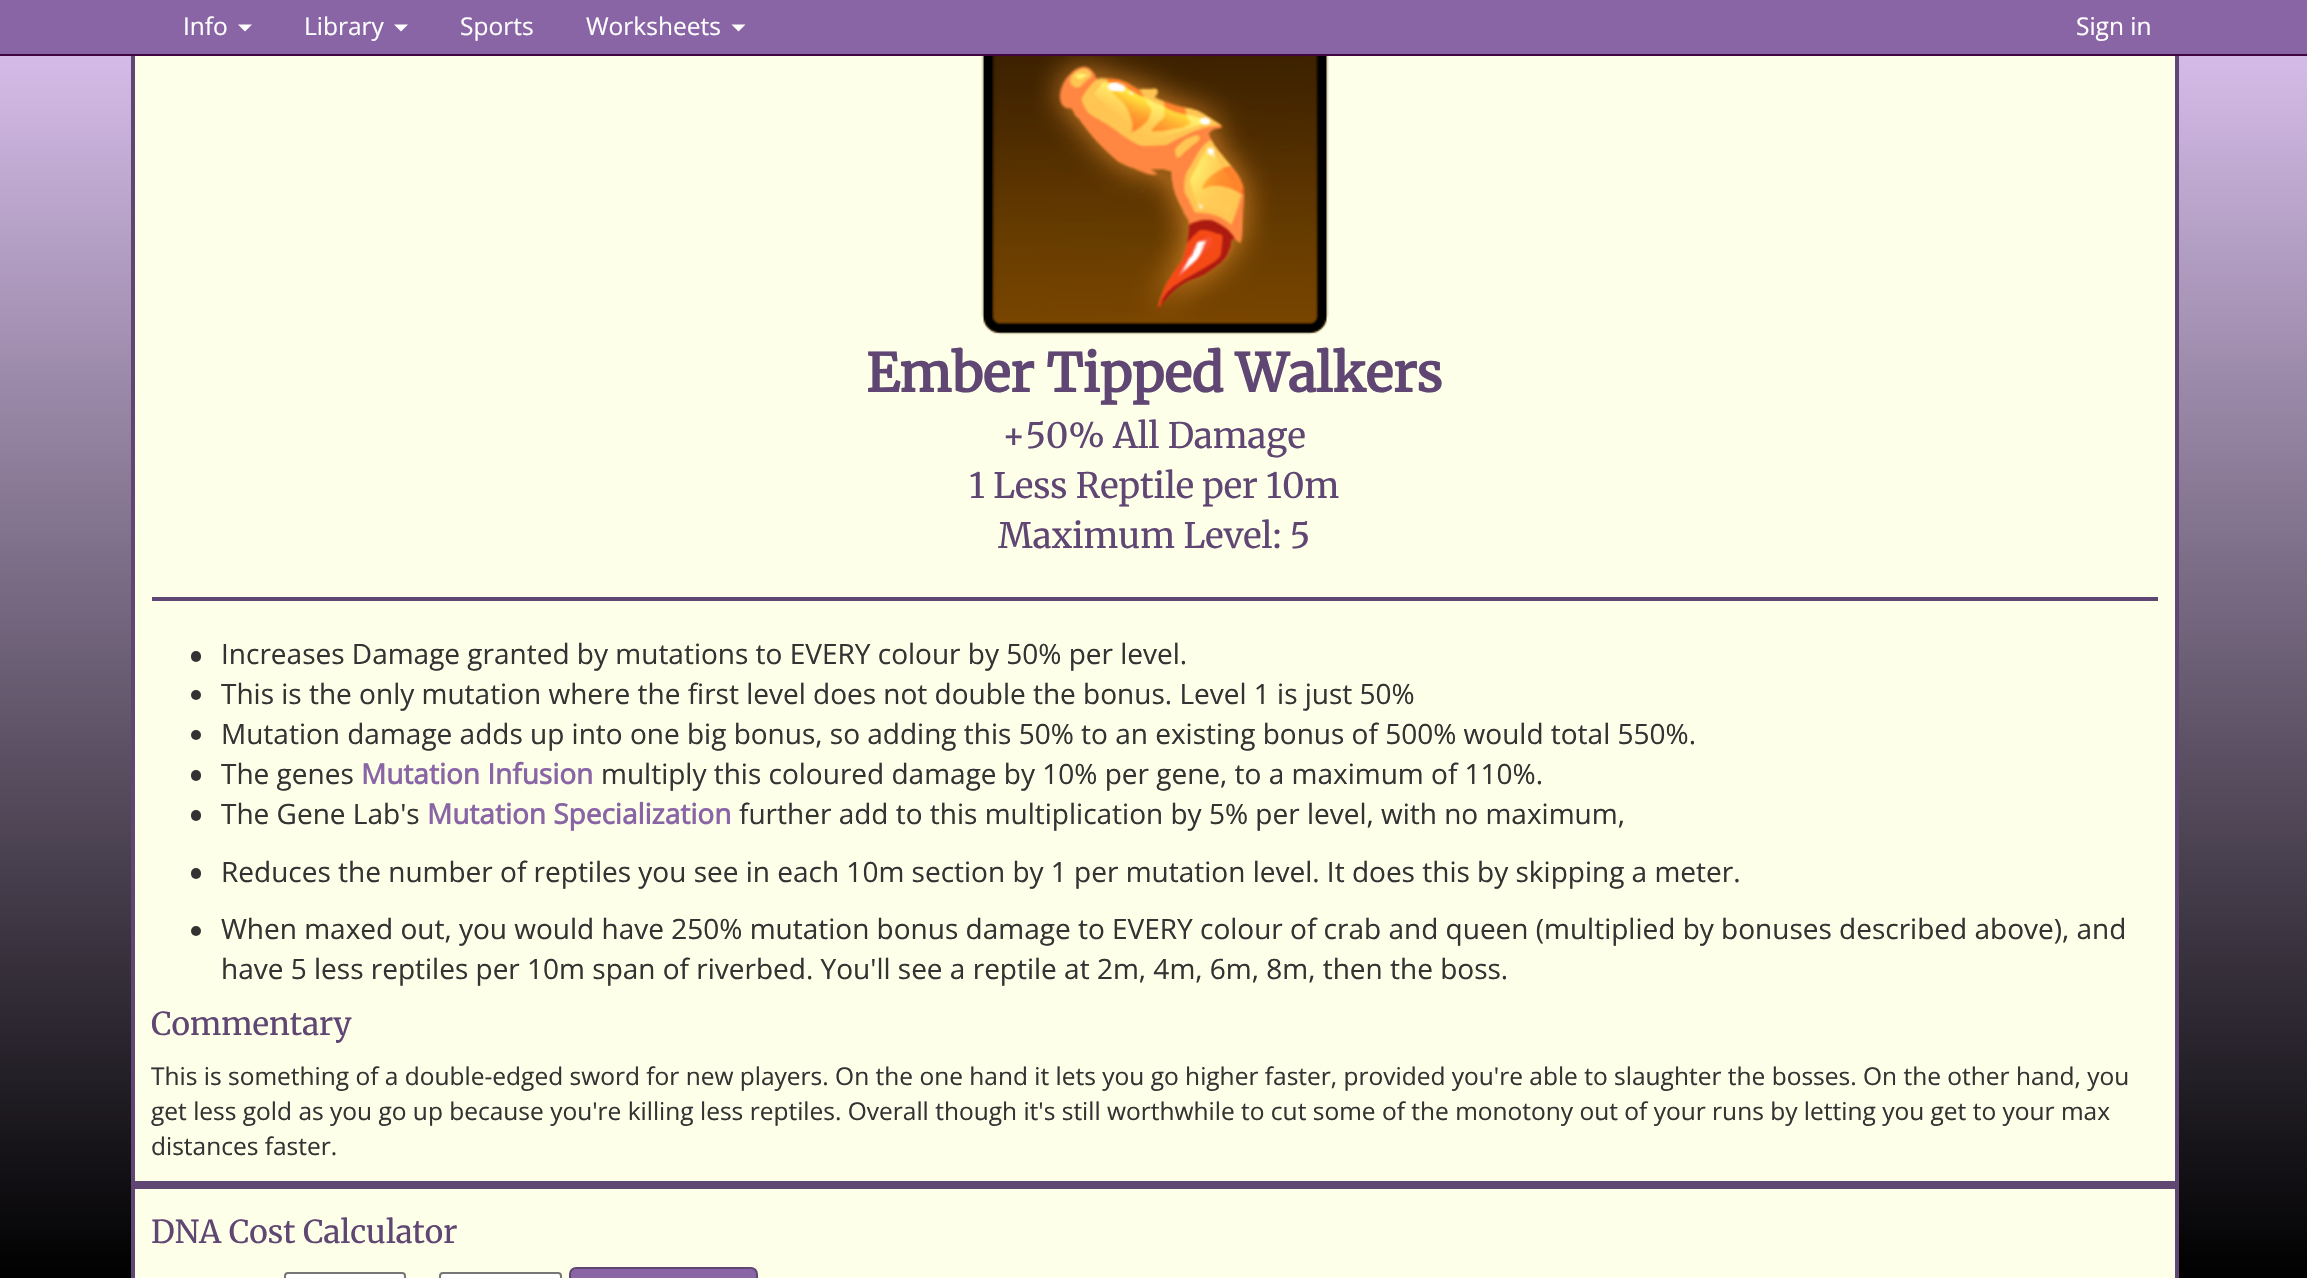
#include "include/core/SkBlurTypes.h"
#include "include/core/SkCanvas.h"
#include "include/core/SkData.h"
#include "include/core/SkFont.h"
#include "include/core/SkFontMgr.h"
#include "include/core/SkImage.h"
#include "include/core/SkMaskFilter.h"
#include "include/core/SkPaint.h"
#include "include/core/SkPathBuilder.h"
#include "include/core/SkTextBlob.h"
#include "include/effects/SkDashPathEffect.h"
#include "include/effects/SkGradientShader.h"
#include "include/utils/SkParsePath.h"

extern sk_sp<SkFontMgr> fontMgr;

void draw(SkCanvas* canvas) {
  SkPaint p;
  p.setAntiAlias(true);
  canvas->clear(SK_ColorWHITE);
  {
    const SkColor colors[] = {SkColorSetRGB(222, 196, 242), SK_ColorBLACK};
    const float stops[] = {0, 1};
    const SkPoint ends[] = {{1154, 0}, {1154, 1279}};
    p.setShader(SkGradientShader::MakeLinear(ends, colors, stops, 2, SkTileMode::kClamp));
    p.setAlpha(255);
  }
  canvas->drawRect(SkRect::MakeLTRB(0, 56, 2307, 1278), p);
  p.setShader(nullptr);
  p.setColor(SkColorSetRGB(253, 255, 232));
  canvas->drawRect(SkRect::MakeLTRB(135, 56, 2175, 1181), p);
  p.setStyle(SkPaint::kStroke_Style);
  p.setStrokeWidth(4);
  p.setColor(SkColorSetRGB(96, 70, 115));
  canvas->drawRect(SkRect::MakeLTRB(133, -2, 2177, 1183), p);
  p.setStyle(SkPaint::kFill_Style);
  p.setColor(SkColorSetRGB(138, 101, 166));
  canvas->drawRect(SkRect::MakeLTRB(0, 0, 2307, 54), p);
  p.setColor(SkColorSetRGB(65, 5, 65));
  canvas->drawRect(SkRect::MakeLTRB(0, 54, 2307, 56), p);
  p.setColor(SK_ColorWHITE);
  canvas->drawPath(SkPathBuilder().moveTo(238, 24.5f).lineTo(252, 24.5f).lineTo(245, 31.5f).close().detach(), p);
  canvas->drawPath(SkPathBuilder().moveTo(394, 24.5f).lineTo(408, 24.5f).lineTo(401, 31.5f).close().detach(), p);
  canvas->drawPath(SkPathBuilder().moveTo(731.5f, 24.5f).lineTo(745.5f, 24.5f).lineTo(738.5f, 31.5f).close().detach(), p);
  canvas->drawImageRect(SkImages::DeferredFromEncodedData(SkData::MakeFromFileName("images/1.png")), SkRect::MakeLTRB(981, 56, 1329, 335), SkSamplingOptions());
  p.setColor(SkColorSetRGB(96, 70, 115));
  canvas->drawRect(SkRect::MakeLTRB(152, 597, 2158, 601), p);
  p.setColor(SkColorSetRGB(51, 51, 51));
  canvas->drawRoundRect(SkRect::MakeLTRB(191, 651, 201, 662), 5, 5, p);
  canvas->drawCircle(196, 695, 5, p);
  canvas->drawCircle(196, 735, 5, p);
  canvas->drawRoundRect(SkRect::MakeLTRB(191, 770, 201, 781), 5, 5, p);
  canvas->drawRoundRect(SkRect::MakeLTRB(191, 810, 201, 821), 5, 5, p);
  canvas->drawRoundRect(SkRect::MakeLTRB(191, 868, 201, 879), 5, 5, p);
  canvas->drawCircle(196, 931, 5, p);
  p.setColor(SkColorSetRGB(253, 255, 232));
  canvas->drawRect(SkRect::MakeLTRB(133, 1187, 2177, 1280), p);
  p.setStyle(SkPaint::kStroke_Style);
  p.setColor(SkColorSetRGB(96, 70, 115));
  canvas->drawRect(SkRect::MakeLTRB(133, 1187, 2177, 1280), p);
  p.setStyle(SkPaint::kFill_Style);
  p.setColor(SK_ColorWHITE);
  canvas->drawRoundRect(SkRect::MakeLTRB(285, 1273, 405, 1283), 3, 3, p);
  p.setStyle(SkPaint::kStroke_Style);
  p.setStrokeWidth(2);
  p.setColor(SkColorSetRGB(118, 118, 118));
  canvas->drawRoundRect(SkRect::MakeLTRB(285, 1273, 405, 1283), 3, 3, p);
  p.setStyle(SkPaint::kFill_Style);
  p.setColor(SK_ColorWHITE);
  canvas->drawRoundRect(SkRect::MakeLTRB(440, 1273, 561, 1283), 3, 3, p);
  p.setStyle(SkPaint::kStroke_Style);
  p.setColor(SkColorSetRGB(118, 118, 118));
  canvas->drawRoundRect(SkRect::MakeLTRB(440, 1273, 561, 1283), 3, 3, p);
  p.setStyle(SkPaint::kFill_Style);
  p.setColor(SkColorSetRGB(138, 101, 166));
  canvas->drawRoundRect(SkRect::MakeLTRB(570, 1268, 757, 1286), 6, 6, p);
  p.setStyle(SkPaint::kStroke_Style);
  p.setColor(SkColorSetRGB(96, 70, 115));
  canvas->drawRoundRect(SkRect::MakeLTRB(570, 1268, 757, 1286), 6, 6, p);
  SkFont font1(fontMgr->matchFamilyStyle("Open Sans", SkFontStyle::Normal()), 24.5f);
  font1.setSubpixel(true);
  p.setStyle(SkPaint::kFill_Style);
  p.setColor(SK_ColorWHITE);
  canvas->drawString("Info", 183, 35, font1, p);
  canvas->drawString("Library", 304, 35, font1, p);
  canvas->drawString("Sports", 460, 35, font1, p);
  canvas->drawString("Worksheets", 586, 35, font1, p);
  canvas->drawString("Sign in", 2076, 35, font1, p);
  SkFont font2(fontMgr->matchFamilyStyle("Merriweather", SkFontStyle::Bold()), 52.5f);
  font2.setSubpixel(true);
  p.setColor(SkColorSetRGB(96, 70, 115));
  canvas->drawString("Ember Tipped Walkers", 866, 392, font2, p);
  SkFont font3(fontMgr->matchFamilyStyle("Merriweather", SkFontStyle(300, SkFontStyle::kNormal_Width, SkFontStyle::kUpright_Slant)), 35);
  font3.setSubpixel(true);
  canvas->drawString("+50% All Damage", 1002, 448, font3, p);
  canvas->drawString("1 Less Reptile per 10m", 969, 498, font3, p);
  canvas->drawString("Maximum Level: 5", 998, 548, font3, p);
  SkFont font4(fontMgr->matchFamilyStyle("Open Sans", SkFontStyle::Normal()), 28);
  font4.setSubpixel(true);
  p.setColor(SkColorSetRGB(51, 51, 51));
  canvas->drawString("Increases Damage granted by mutations to EVERY colour by 50% per level.", 221, 664, font4, p);
  canvas->drawString("This is the only mutation where the first level does not double the bonus. Level 1 is just 50%", 221, 704, font4, p);
  canvas->drawString("Mutation damage adds up into one big bonus, so adding this 50% to an existing bonus of 500% would total 550%.", 221, 744, font4, p);
  canvas->drawString("The genes", 221, 784, font4, p);
  SkFont font5(fontMgr->matchFamilyStyle("Open Sans", SkFontStyle::Bold()), 28);
  font5.setSubpixel(true);
  p.setColor(SkColorSetRGB(138, 101, 166));
  canvas->drawString("Mutation Infusion", 361, 784, font5, p);
  p.setColor(SkColorSetRGB(51, 51, 51));
  canvas->drawString("multiply this coloured damage by 10% per gene, to a maximum of 110%.", 601, 784, font4, p);
  canvas->drawString("The Gene Lab's", 221, 824, font4, p);
  p.setColor(SkColorSetRGB(138, 101, 166));
  canvas->drawString("Mutation Specialization", 427, 824, font5, p);
  p.setColor(SkColorSetRGB(51, 51, 51));
  canvas->drawString("further add to this multiplication by 5% per level, with no maximum,", 739, 824, font4, p);
  canvas->drawString("Reduces the number of reptiles you see in each 10m section by 1 per mutation level. It does this by skipping a meter.", 221, 882, font4, p);
  canvas->drawString("When maxed out, you would have 250% mutation bonus damage to EVERY colour of crab and queen (multiplied by bonuses described above), and", 221, 939, font4, p);
  canvas->drawString("have 5 less reptiles per 10m span of riverbed. You'll see a reptile at 2m, 4m, 6m, 8m, then the boss.", 221, 979, font4, p);
  SkFont font6(fontMgr->matchFamilyStyle("Merriweather", SkFontStyle(300, SkFontStyle::kNormal_Width, SkFontStyle::kUpright_Slant)), 31.5f);
  font6.setSubpixel(true);
  p.setColor(SkColorSetRGB(96, 70, 115));
  canvas->drawString("Commentary", 151, 1035, font6, p);
  p.setColor(SkColorSetRGB(51, 51, 51));
  canvas->drawString("This is something of a double-edged sword for new players. On the one hand it lets you go higher faster, provided you're able to slaughter the bosses. On the other hand, you", 151, 1085, font1, p);
  canvas->drawString("get less gold as you go up because you're killing less reptiles. Overall though it's still worthwhile to cut some of the monotony out of your runs by letting you get to your max", 151, 1120, font1, p);
  canvas->drawString("distances faster.", 151, 1155, font1, p);
  p.setColor(SkColorSetRGB(96, 70, 115));
  canvas->drawString("DNA Cost Calculator", 151, 1243, font6, p);
}
